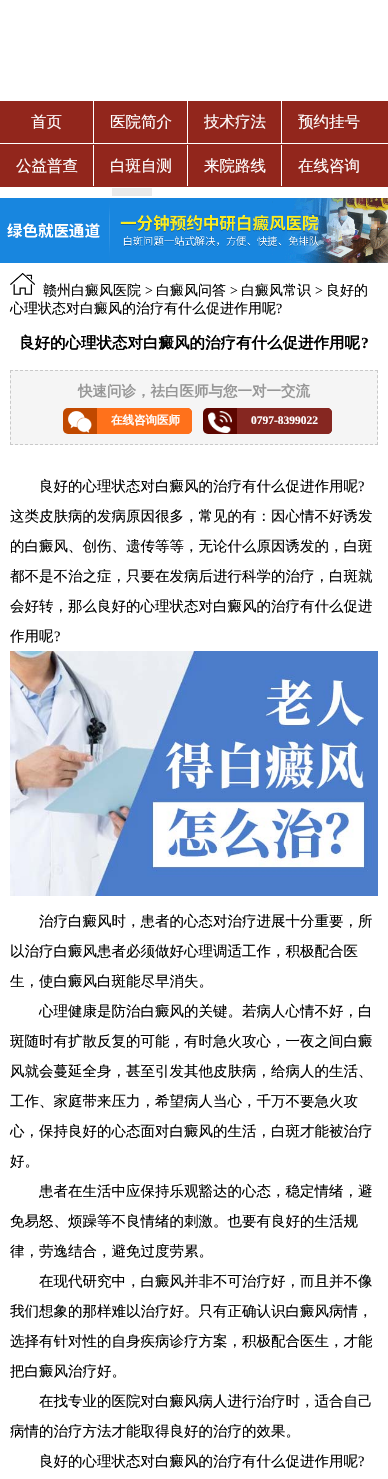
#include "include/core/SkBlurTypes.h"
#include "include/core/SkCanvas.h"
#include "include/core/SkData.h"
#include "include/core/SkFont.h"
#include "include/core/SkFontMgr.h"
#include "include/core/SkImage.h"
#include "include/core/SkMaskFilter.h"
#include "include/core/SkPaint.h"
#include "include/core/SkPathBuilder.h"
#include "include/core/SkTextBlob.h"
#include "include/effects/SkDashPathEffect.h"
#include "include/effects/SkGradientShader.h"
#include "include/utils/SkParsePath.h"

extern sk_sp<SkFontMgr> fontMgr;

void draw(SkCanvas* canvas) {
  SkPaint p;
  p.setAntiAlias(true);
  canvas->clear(SK_ColorWHITE);
  p.setColor(SkColorSetRGB(146, 38, 28));
  canvas->drawRect(SkRect::MakeLTRB(0, 101, 388, 187), p);
  p.setColor(SK_ColorWHITE);
  canvas->drawRect(SkRect::MakeLTRB(0, 143, 388, 144), p);
  canvas->drawRect(SkRect::MakeLTRB(93, 101, 94, 143), p);
  canvas->drawRect(SkRect::MakeLTRB(187, 101, 188, 143), p);
  canvas->drawRect(SkRect::MakeLTRB(281, 101, 282, 143), p);
  canvas->drawRect(SkRect::MakeLTRB(93, 145, 94, 186), p);
  canvas->drawRect(SkRect::MakeLTRB(187, 145, 188, 186), p);
  canvas->drawRect(SkRect::MakeLTRB(281, 145, 282, 186), p);
  p.setColor(SkColorSetRGB(234, 234, 234));
  canvas->drawRect(SkRect::MakeLTRB(112, 188, 152, 196), p);
  canvas->drawImageRect(SkImages::DeferredFromEncodedData(SkData::MakeFromFileName("images/1.png")), SkRect::MakeLTRB(0, 198, 388, 263), SkSamplingOptions());
  canvas->drawImageRect(SkImages::DeferredFromEncodedData(SkData::MakeFromFileName("images/2.png")), SkRect::MakeLTRB(10, 273, 35, 295), SkSamplingOptions());
  p.setColor(SkColorSetRGB(245, 245, 245));
  canvas->drawRect(SkRect::MakeLTRB(10, 370, 378, 445), p);
  p.setStyle(SkPaint::kStroke_Style);
  p.setStrokeWidth(1);
  p.setColor(SkColorSetRGB(201, 201, 201));
  p.setPathEffect(SkDashPathEffect::Make({{3, 2}}, 0));
  canvas->drawPath(SkPathBuilder().moveTo(10, 370.5f).lineTo(378, 370.5f).detach(), p);
  p.setPathEffect(nullptr);
  p.setPathEffect(SkDashPathEffect::Make({{3, 2.14f}}, 0));
  canvas->drawPath(SkPathBuilder().moveTo(377.5f, 370).lineTo(377.5f, 445).detach(), p);
  p.setPathEffect(nullptr);
  p.setPathEffect(SkDashPathEffect::Make({{3, 2}}, 0));
  canvas->drawPath(SkPathBuilder().moveTo(10, 444.5f).lineTo(378, 444.5f).detach(), p);
  p.setPathEffect(nullptr);
  p.setPathEffect(SkDashPathEffect::Make({{3, 2.14f}}, 0));
  canvas->drawPath(SkPathBuilder().moveTo(10.5f, 370).lineTo(10.5f, 445).detach(), p);
  p.setPathEffect(nullptr);
  p.setStyle(SkPaint::kFill_Style);
  p.setColor(SkColorSetRGB(193, 73, 0));
  canvas->drawRoundRect(SkRect::MakeLTRB(63, 408, 192, 434), 5, 5, p);
  canvas->drawImageRect(SkImages::DeferredFromEncodedData(SkData::MakeFromFileName("images/3.png")), SkRect::MakeLTRB(68, 411, 92, 433), SkSamplingOptions());
  p.setColor(SkColorSetRGB(255, 113, 27));
  canvas->drawPath(SkPathBuilder().moveTo(97, 408).lineTo(187, 408).cubicTo(190, 408, 192, 410, 192, 413).lineTo(192, 429).cubicTo(192, 432, 190, 434, 187, 434).lineTo(97, 434).close().detach(), p);
  p.setColor(SkColorSetRGB(93, 6, 0));
  canvas->drawRoundRect(SkRect::MakeLTRB(203, 408, 332, 434), 5, 5, p);
  canvas->drawImageRect(SkImages::DeferredFromEncodedData(SkData::MakeFromFileName("images/4.png")), SkRect::MakeLTRB(208, 411, 232, 433), SkSamplingOptions());
  p.setColor(SkColorSetRGB(134, 39, 33));
  canvas->drawPath(SkPathBuilder().moveTo(237, 408).lineTo(327, 408).cubicTo(330, 408, 332, 410, 332, 413).lineTo(332, 429).cubicTo(332, 432, 330, 434, 327, 434).lineTo(237, 434).close().detach(), p);
  canvas->drawImageRect(SkImages::DeferredFromEncodedData(SkData::MakeFromFileName("images/5.png")), SkRect::MakeLTRB(10, 651, 378, 896), SkSamplingOptions());
  SkFont font1(fontMgr->matchFamilyStyle("WenQuanYi Zen Hei", SkFontStyle(500, SkFontStyle::kNormal_Width, SkFontStyle::kUpright_Slant)), 15.5f);
  font1.setSubpixel(true);
  p.setColor(SK_ColorWHITE);
  canvas->drawString("首页", 31, 127, font1, p);
  canvas->drawString("医院简介", 110, 127, font1, p);
  canvas->drawString("技术疗法", 204, 127, font1, p);
  canvas->drawString("预约挂号", 298, 127, font1, p);
  canvas->drawString("公益普查", 16, 171, font1, p);
  canvas->drawString("白斑自测", 110, 171, font1, p);
  canvas->drawString("来院路线", 204, 171, font1, p);
  canvas->drawString("在线咨询", 298, 171, font1, p);
  SkFont font2(fontMgr->matchFamilyStyle("WenQuanYi Zen Hei", SkFontStyle(500, SkFontStyle::kNormal_Width, SkFontStyle::kUpright_Slant)), 14);
  font2.setSubpixel(true);
  p.setColor(SK_ColorBLACK);
  canvas->drawString("赣州白癜风医院", 43, 295, font2, p);
  SkFont font3(fontMgr->matchFamilyStyle("Liberation Serif", SkFontStyle::Normal()), 14);
  font3.setSubpixel(true);
  canvas->drawString(">", 145, 295, font3, p);
  canvas->drawString("白癜风问答", 156, 295, font2, p);
  canvas->drawString(">", 230, 295, font3, p);
  canvas->drawString("白癜风常识", 241, 295, font2, p);
  canvas->drawString(">", 315, 295, font3, p);
  canvas->drawString("良好的", 326, 295, font2, p);
  canvas->drawString("心理状态对白癜风的治疗有什么促进作用呢", 10, 313, font2, p);
  canvas->drawString("?", 276, 313, font3, p);
  SkFont font4(fontMgr->matchFamilyStyle("WenQuanYi Zen Hei", SkFontStyle::Bold()), 15.5f);
  font4.setSubpixel(true);
  canvas->drawString("良好的心理状态对白癜风的治疗有什么促进作用呢", 19, 348, font4, p);
  SkFont font5(fontMgr->matchFamilyStyle("Liberation Serif", SkFontStyle::Bold()), 15.5f);
  font5.setSubpixel(true);
  canvas->drawString("?", 361, 348, font5, p);
  SkFont font6(fontMgr->matchFamilyStyle("WenQuanYi Zen Hei", SkFontStyle::Bold()), 14.5f);
  font6.setSubpixel(true);
  p.setColor(SkColorSetRGB(151, 151, 151));
  canvas->drawString("快速问诊，祛白医师与您一对一交流", 78, 396, font6, p);
  SkFont font7(fontMgr->matchFamilyStyle("WenQuanYi Zen Hei", SkFontStyle::Bold()), 11.5f);
  font7.setSubpixel(true);
  p.setColor(SK_ColorWHITE);
  canvas->drawString("在线咨询医师", 111, 424, font7, p);
  SkFont font8(fontMgr->matchFamilyStyle("Liberation Serif", SkFontStyle::Bold()), 11.5f);
  font8.setSubpixel(true);
  canvas->drawString("0797-8399022", 251, 424, font8, p);
  SkFont font9(fontMgr->matchFamilyStyle("WenQuanYi Zen Hei", SkFontStyle(500, SkFontStyle::kNormal_Width, SkFontStyle::kUpright_Slant)), 14.5f);
  font9.setSubpixel(true);
  p.setColor(SK_ColorBLACK);
  canvas->drawString("良好的心理状态对白癜风的治疗有什么促进作用呢", 39, 491, font9, p);
  SkFont font10(fontMgr->matchFamilyStyle("Liberation Serif", SkFontStyle::Normal()), 14.5f);
  font10.setSubpixel(true);
  canvas->drawString("?", 358, 491, font10, p);
  canvas->drawString("这类皮肤病的发病原因很多，常见的有：因心情不好诱发", 10, 521, font9, p);
  canvas->drawString("的白癜风、创伤、遗传等等，无论什么原因诱发的，白斑", 10, 551, font9, p);
  canvas->drawString("都不是不治之症，只要在发病后进行科学的治疗，白斑就", 10, 581, font9, p);
  canvas->drawString("会好转，那么良好的心理状态对白癜风的治疗有什么促进", 10, 611, font9, p);
  canvas->drawString("作用呢", 10, 641, font9, p);
  canvas->drawString("?", 54, 641, font10, p);
  canvas->drawString("治疗白癜风时，患者的心态对治疗进展十分重要，所", 39, 926, font9, p);
  canvas->drawString("以治疗白癜风患者必须做好心理调适工作，积极配合医", 10, 956, font9, p);
  canvas->drawString("生，使白癜风白斑能尽早消失。", 10, 986, font9, p);
  canvas->drawString("心理健康是防治白癜风的关键。若病人心情不好，白", 39, 1016, font9, p);
  canvas->drawString("斑随时有扩散反复的可能，有时急火攻心，一夜之间白癜", 10, 1046, font9, p);
  canvas->drawString("风就会蔓延全身，甚至引发其他皮肤病，给病人的生活、", 10, 1076, font9, p);
  canvas->drawString("工作、家庭带来压力，希望病人当心，千万不要急火攻", 10, 1106, font9, p);
  canvas->drawString("心，保持良好的心态面对白癜风的生活，白斑才能被治疗", 10, 1136, font9, p);
  canvas->drawString("好。", 10, 1166, font9, p);
  canvas->drawString("患者在生活中应保持乐观豁达的心态，稳定情绪，避", 39, 1196, font9, p);
  canvas->drawString("免易怒、烦躁等不良情绪的刺激。也要有良好的生活规", 10, 1226, font9, p);
  canvas->drawString("律，劳逸结合，避免过度劳累。", 10, 1256, font9, p);
  canvas->drawString("在现代研究中，白癜风并非不可治疗好，而且并不像", 39, 1286, font9, p);
  canvas->drawString("我们想象的那样难以治疗好。只有正确认识白癜风病情，", 10, 1316, font9, p);
  canvas->drawString("选择有针对性的自身疾病诊疗方案，积极配合医生，才能", 10, 1346, font9, p);
  canvas->drawString("把白癜风治疗好。", 10, 1376, font9, p);
  canvas->drawString("在找专业的医院对白癜风病人进行治疗时，适合自己", 39, 1406, font9, p);
  canvas->drawString("病情的治疗方法才能取得良好的治疗的效果。", 10, 1436, font9, p);
  canvas->drawString("良好的心理状态对白癜风的治疗有什么促进作用呢", 39, 1466, font9, p);
  canvas->drawString("?", 358, 1466, font10, p);
}
